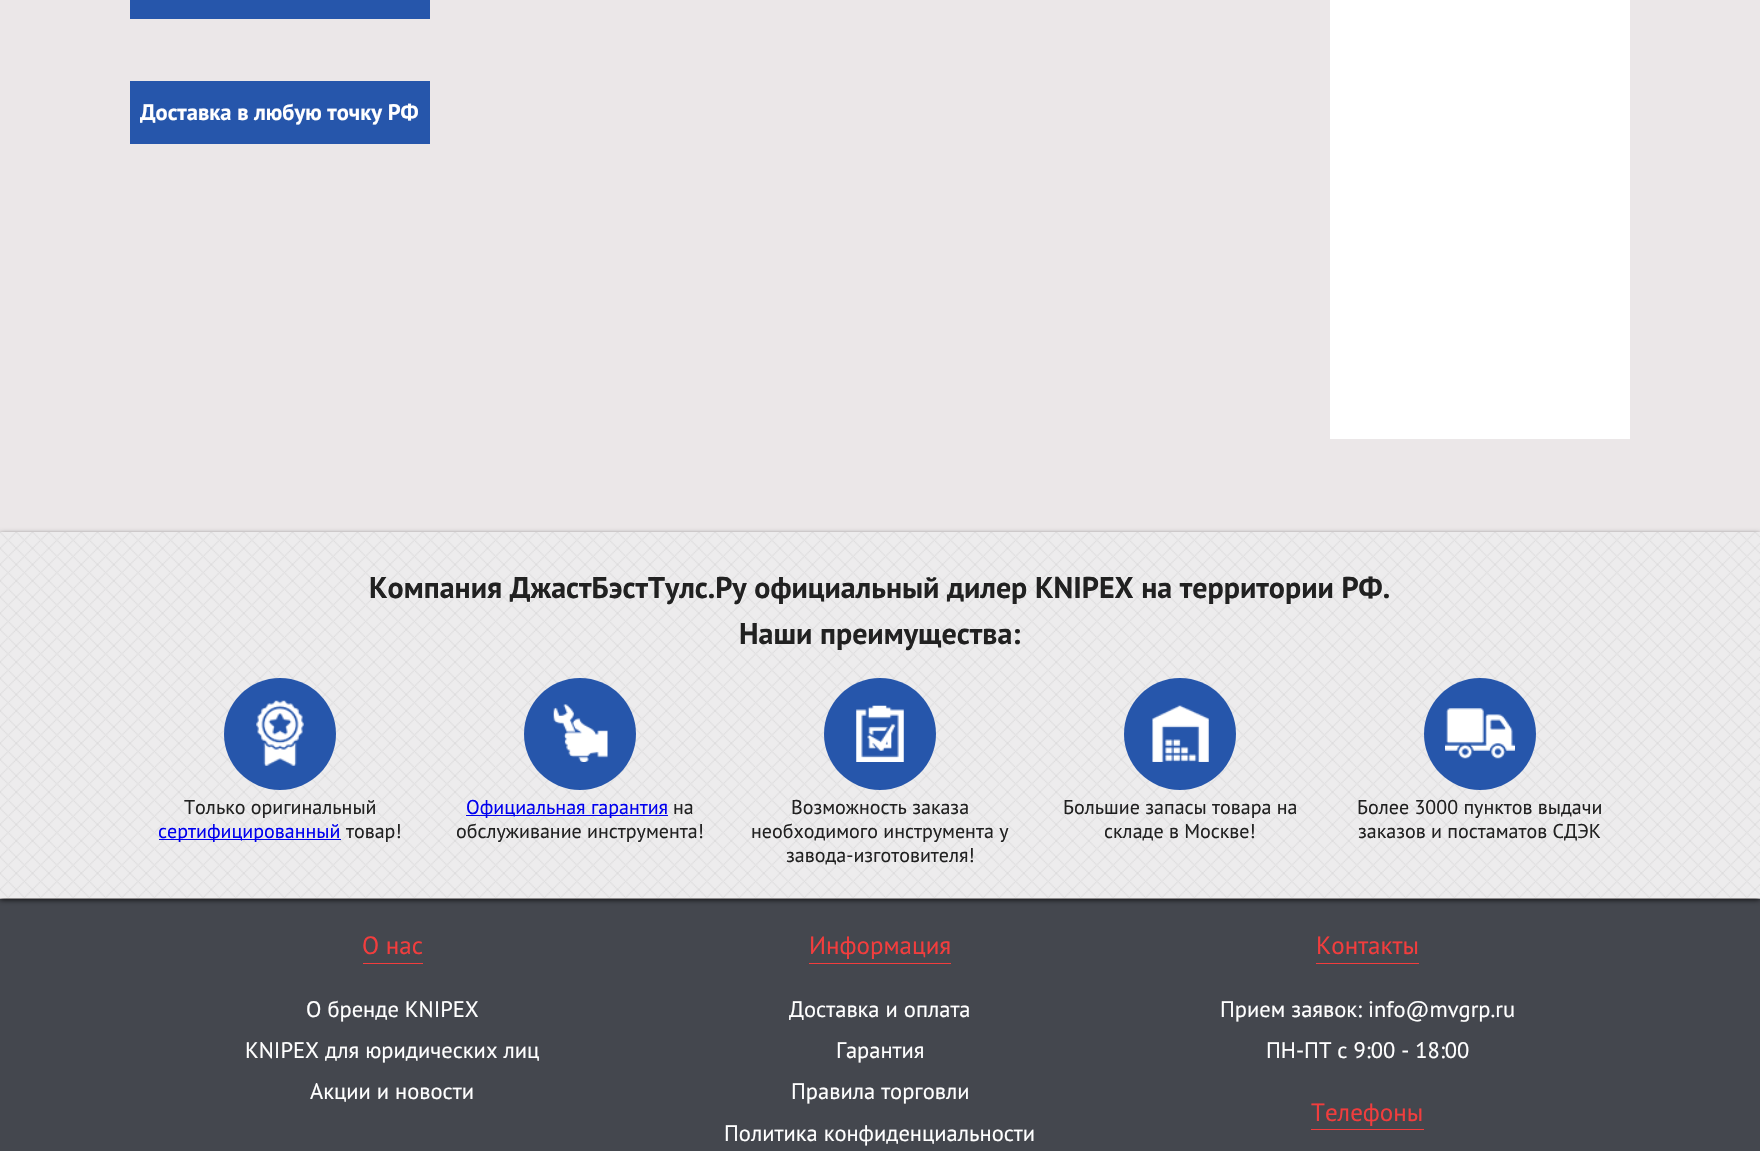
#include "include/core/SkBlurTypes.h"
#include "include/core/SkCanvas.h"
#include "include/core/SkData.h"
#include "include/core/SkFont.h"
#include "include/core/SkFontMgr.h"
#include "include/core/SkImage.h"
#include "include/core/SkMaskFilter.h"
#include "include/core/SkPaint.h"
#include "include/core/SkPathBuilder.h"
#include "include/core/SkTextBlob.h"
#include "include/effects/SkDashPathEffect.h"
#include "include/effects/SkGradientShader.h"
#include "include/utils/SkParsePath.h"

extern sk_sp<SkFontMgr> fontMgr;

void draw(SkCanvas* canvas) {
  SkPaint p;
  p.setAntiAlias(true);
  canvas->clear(SkColorSetRGB(235, 231, 232));
  p.setColor(SkColorSetRGB(38, 86, 171));
  canvas->drawRect(SkRect::MakeLTRB(130, 0, 430, 19), p);
  canvas->drawRect(SkRect::MakeLTRB(130, 81, 430, 144), p);
  p.setColor(SK_ColorWHITE);
  canvas->drawRect(SkRect::MakeLTRB(1330, 0, 1630, 439), p);
  p.setColor(SkColorSetRGB(68, 71, 78));
  canvas->drawRect(SkRect::MakeLTRB(0, 899, 1760, 1151), p);
  p.setColor(SkColorSetARGB(191, 0, 0, 0));
  p.setMaskFilter(SkMaskFilter::MakeBlur(kNormal_SkBlurStyle, 2.5f));
  canvas->drawRect(SkRect::MakeLTRB(0, 534, 1760, 900), p);
  p.setMaskFilter(nullptr);
  canvas->drawImageRect(SkImages::DeferredFromEncodedData(SkData::MakeFromFileName("images/1.png")), SkRect::MakeLTRB(0, 532, 1760, 899), SkSamplingOptions());
  p.setColor(SkColorSetRGB(38, 86, 171));
  canvas->drawCircle(280, 734, 56, p);
  canvas->drawImageRect(SkImages::DeferredFromEncodedData(SkData::MakeFromFileName("images/2.png")), SkRect::MakeLTRB(256, 700, 304, 766), SkSamplingOptions());
  p.setColor(SkColorSetRGB(0, 0, 238));
  canvas->drawRect(SkRect::MakeLTRB(159, 839, 341, 840), p);
  p.setColor(SkColorSetRGB(38, 86, 171));
  canvas->drawCircle(580, 734, 56, p);
  canvas->drawImageRect(SkImages::DeferredFromEncodedData(SkData::MakeFromFileName("images/3.png")), SkRect::MakeLTRB(553, 704, 608, 762), SkSamplingOptions());
  p.setColor(SkColorSetRGB(0, 0, 238));
  canvas->drawRect(SkRect::MakeLTRB(466, 815, 668, 816), p);
  p.setColor(SkColorSetRGB(38, 86, 171));
  canvas->drawCircle(880, 734, 56, p);
  canvas->drawImageRect(SkImages::DeferredFromEncodedData(SkData::MakeFromFileName("images/4.png")), SkRect::MakeLTRB(856, 705, 904, 762), SkSamplingOptions());
  canvas->drawCircle(1180, 734, 56, p);
  canvas->drawImageRect(SkImages::DeferredFromEncodedData(SkData::MakeFromFileName("images/5.png")), SkRect::MakeLTRB(1152, 705, 1209, 762), SkSamplingOptions());
  canvas->drawCircle(1480, 734, 56, p);
  canvas->drawImageRect(SkImages::DeferredFromEncodedData(SkData::MakeFromFileName("images/6.png")), SkRect::MakeLTRB(1445, 708, 1515, 759), SkSamplingOptions());
  p.setColor(SkColorSetRGB(242, 61, 61));
  canvas->drawRect(SkRect::MakeLTRB(363, 963, 423, 964), p);
  canvas->drawRect(SkRect::MakeLTRB(809, 963, 951, 964), p);
  canvas->drawRect(SkRect::MakeLTRB(1316, 963, 1419, 964), p);
  canvas->drawRect(SkRect::MakeLTRB(1311, 1129, 1424, 1130), p);
  SkFont font1(fontMgr->matchFamilyStyle("PT Sans", SkFontStyle::Bold()), 22.5f);
  font1.setSubpixel(true);
  p.setColor(SK_ColorWHITE);
  canvas->drawString("Доставка в любую точку РФ", 140, 120, font1, p);
  SkFont font2(fontMgr->matchFamilyStyle("PT Sans", SkFontStyle::Bold()), 30);
  font2.setSubpixel(true);
  p.setColor(SkColorSetRGB(33, 33, 33));
  canvas->drawString("Компания ДжастБэстТулс.Ру официальный дилер KNIPEX на территории РФ.", 369, 598, font2, p);
  canvas->drawString("Наши преимущества:", 739, 644, font2, p);
  SkFont font3(fontMgr->matchFamilyStyle("PT Sans", SkFontStyle::Normal()), 20);
  font3.setSubpixel(true);
  canvas->drawString("Только оригинальный", 184, 814, font3, p);
  p.setColor(SkColorSetRGB(0, 0, 238));
  canvas->drawString("сертифицированный", 158, 838, font3, p);
  p.setColor(SkColorSetRGB(33, 33, 33));
  canvas->drawString("товар!", 346, 838, font3, p);
  p.setColor(SkColorSetRGB(0, 0, 238));
  canvas->drawString("Официальная гарантия", 466, 814, font3, p);
  p.setColor(SkColorSetRGB(33, 33, 33));
  canvas->drawString("на", 673, 814, font3, p);
  canvas->drawString("обслуживание инструмента!", 456, 838, font3, p);
  canvas->drawString("Возможность заказа", 791, 814, font3, p);
  canvas->drawString("необходимого инструмента у", 751, 838, font3, p);
  canvas->drawString("завода-изготовителя!", 786, 862, font3, p);
  canvas->drawString("Большие запасы товара на", 1063, 814, font3, p);
  canvas->drawString("складе в Москве!", 1104, 838, font3, p);
  canvas->drawString("Более 3000 пунктов выдачи", 1357, 814, font3, p);
  canvas->drawString("заказов и постаматов СДЭК", 1358, 838, font3, p);
  SkFont font4(fontMgr->matchFamilyStyle("PT Sans", SkFontStyle::Normal()), 25);
  font4.setSubpixel(true);
  p.setColor(SkColorSetRGB(242, 61, 61));
  canvas->drawString("О нас", 362, 954, font4, p);
  SkFont font5(fontMgr->matchFamilyStyle("PT Sans", SkFontStyle::Normal()), 22.5f);
  font5.setSubpixel(true);
  p.setColor(SK_ColorWHITE);
  canvas->drawString("О бренде KNIPEX", 306, 1017, font5, p);
  canvas->drawString("KNIPEX для юридических лиц", 245, 1058, font5, p);
  canvas->drawString("Акции и новости", 310, 1099, font5, p);
  p.setColor(SkColorSetRGB(242, 61, 61));
  canvas->drawString("Информация", 809, 954, font4, p);
  p.setColor(SK_ColorWHITE);
  canvas->drawString("Доставка и оплата", 789, 1017, font5, p);
  canvas->drawString("Гарантия", 836, 1058, font5, p);
  canvas->drawString("Правила торговли", 791, 1099, font5, p);
  canvas->drawString("Политика конфиденциальности", 724, 1141, font5, p);
  p.setColor(SkColorSetRGB(242, 61, 61));
  canvas->drawString("Контакты", 1316, 954, font4, p);
  p.setColor(SK_ColorWHITE);
  canvas->drawString("Прием заявок: info@mvgrp.ru", 1220, 1017, font5, p);
  canvas->drawString("ПН-ПТ с 9:00 - 18:00", 1266, 1058, font5, p);
  p.setColor(SkColorSetRGB(242, 61, 61));
  canvas->drawString("Телефоны", 1311, 1121, font4, p);
}
